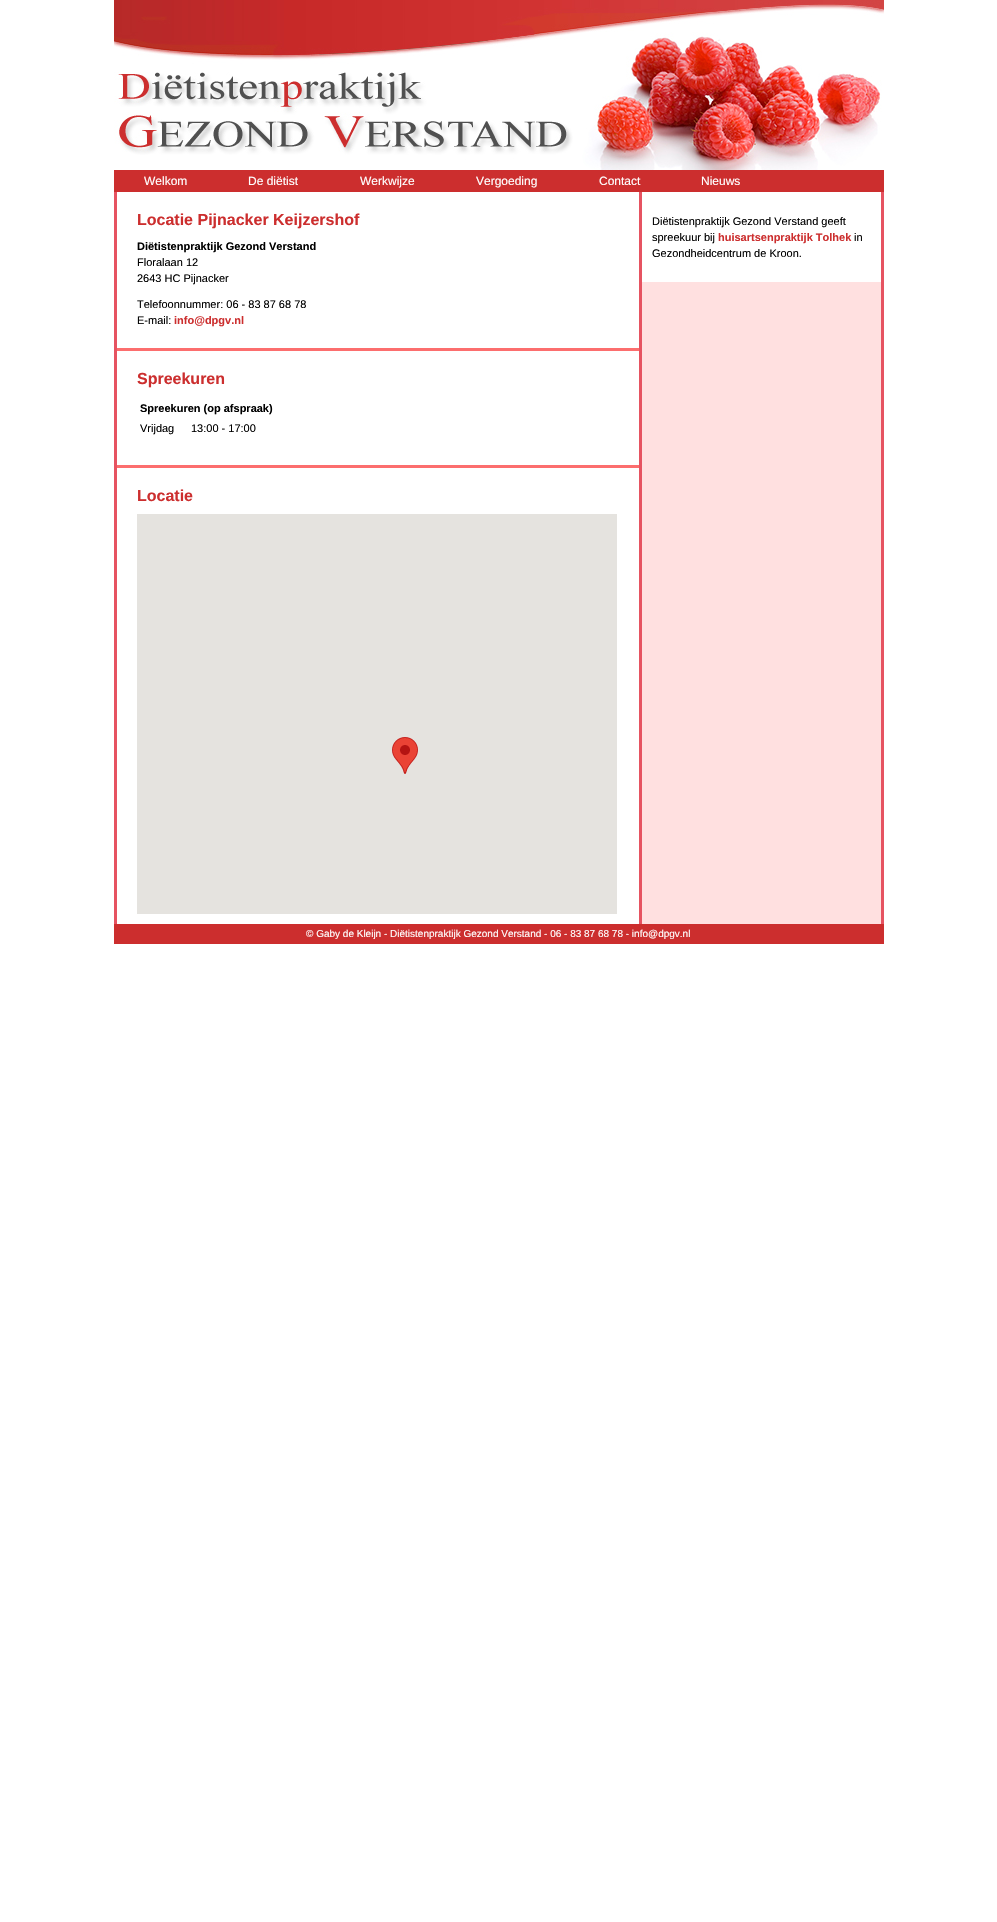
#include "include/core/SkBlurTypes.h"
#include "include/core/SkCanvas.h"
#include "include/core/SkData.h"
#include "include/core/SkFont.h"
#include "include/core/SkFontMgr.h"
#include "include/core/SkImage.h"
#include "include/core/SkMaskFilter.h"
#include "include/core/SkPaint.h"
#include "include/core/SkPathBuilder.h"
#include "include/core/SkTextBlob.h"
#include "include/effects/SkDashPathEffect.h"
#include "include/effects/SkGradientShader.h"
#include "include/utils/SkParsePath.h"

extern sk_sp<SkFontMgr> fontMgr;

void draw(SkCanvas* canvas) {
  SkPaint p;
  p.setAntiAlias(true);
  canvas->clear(SK_ColorWHITE);
  canvas->drawImageRect(SkImages::DeferredFromEncodedData(SkData::MakeFromFileName("images/1.png")), SkRect::MakeLTRB(114, 0, 884, 170), SkSamplingOptions());
  p.setColor(SkColorSetRGB(204, 46, 46));
  canvas->drawRect(SkRect::MakeLTRB(114, 170, 884, 192), p);
  p.setColor(SkColorSetRGB(230, 83, 97));
  canvas->drawRect(SkRect::MakeLTRB(639, 192, 642, 924), p);
  canvas->drawRect(SkRect::MakeLTRB(114, 192, 117, 924), p);
  p.setColor(SkColorSetRGB(252, 110, 110));
  canvas->drawRect(SkRect::MakeLTRB(117, 348, 639, 351), p);
  canvas->drawRect(SkRect::MakeLTRB(117, 465, 639, 468), p);
  p.setColor(SkColorSetRGB(229, 227, 223));
  canvas->drawRect(SkRect::MakeLTRB(137, 514, 617, 914), p);
  canvas->drawImageRect(SkImages::DeferredFromEncodedData(SkData::MakeFromFileName("images/2.png")), SkRect::MakeLTRB(392, 737, 418, 774), SkSamplingOptions());
  p.setColor(SkColorSetRGB(255, 224, 224));
  canvas->drawRect(SkRect::MakeLTRB(642, 282, 881, 924), p);
  p.setColor(SkColorSetRGB(230, 83, 97));
  canvas->drawRect(SkRect::MakeLTRB(881, 192, 884, 924), p);
  p.setColor(SkColorSetRGB(204, 46, 46));
  canvas->drawRect(SkRect::MakeLTRB(114, 924, 884, 944), p);
  SkFont font1(fontMgr->matchFamilyStyle("Liberation Sans", SkFontStyle::Normal()), 12);
  font1.setSubpixel(true);
  p.setColor(SK_ColorWHITE);
  canvas->drawString("Welkom", 144, 185, font1, p);
  canvas->drawString("De diëtist", 248, 185, font1, p);
  canvas->drawString("Werkwijze", 360, 185, font1, p);
  canvas->drawString("Vergoeding", 476, 185, font1, p);
  canvas->drawString("Contact", 599, 185, font1, p);
  canvas->drawString("Nieuws", 701, 185, font1, p);
  SkFont font2(fontMgr->matchFamilyStyle("Liberation Sans", SkFontStyle::Bold()), 16);
  font2.setSubpixel(true);
  p.setColor(SkColorSetRGB(204, 46, 46));
  canvas->drawString("Locatie Pijnacker Keijzershof", 137, 225, font2, p);
  SkFont font3(fontMgr->matchFamilyStyle("Liberation Sans", SkFontStyle::Bold()), 11);
  font3.setSubpixel(true);
  p.setColor(SK_ColorBLACK);
  canvas->drawString("Diëtistenpraktijk Gezond Verstand", 137, 250, font3, p);
  SkFont font4(fontMgr->matchFamilyStyle("Liberation Sans", SkFontStyle::Normal()), 11);
  font4.setSubpixel(true);
  canvas->drawString("Floralaan 12", 137, 266, font4, p);
  canvas->drawString("2643 HC Pijnacker", 137, 282, font4, p);
  canvas->drawString("Telefoonnummer: 06 - 83 87 68 78", 137, 308, font4, p);
  canvas->drawString("E-mail:", 137, 324, font4, p);
  p.setColor(SkColorSetRGB(204, 46, 46));
  canvas->drawString("info@dpgv.nl", 174, 324, font3, p);
  canvas->drawString("Spreekuren", 137, 384, font2, p);
  p.setColor(SK_ColorBLACK);
  canvas->drawString("Spreekuren (op afspraak)", 140, 412, font3, p);
  canvas->drawString("Vrijdag", 140, 432, font4, p);
  canvas->drawString("13:00 - 17:00", 191, 432, font4, p);
  p.setColor(SkColorSetRGB(204, 46, 46));
  canvas->drawString("Locatie", 137, 501, font2, p);
  p.setColor(SK_ColorBLACK);
  canvas->drawString("Diëtistenpraktijk Gezond Verstand geeft", 652, 225, font4, p);
  canvas->drawString("spreekuur bij", 652, 241, font4, p);
  p.setColor(SkColorSetRGB(204, 46, 46));
  canvas->drawString("huisartsenpraktijk Tolhek", 718, 241, font3, p);
  p.setColor(SK_ColorBLACK);
  canvas->drawString("in", 854, 241, font4, p);
  canvas->drawString("Gezondheidcentrum de Kroon.", 652, 257, font4, p);
  SkFont font5(fontMgr->matchFamilyStyle("Liberation Sans", SkFontStyle::Normal()), 10);
  font5.setSubpixel(true);
  p.setColor(SK_ColorWHITE);
  canvas->drawString("© Gaby de Kleijn - Diëtistenpraktijk Gezond Verstand - 06 - 83 87 68 78 - info@dpgv.nl", 306, 937, font5, p);
}
